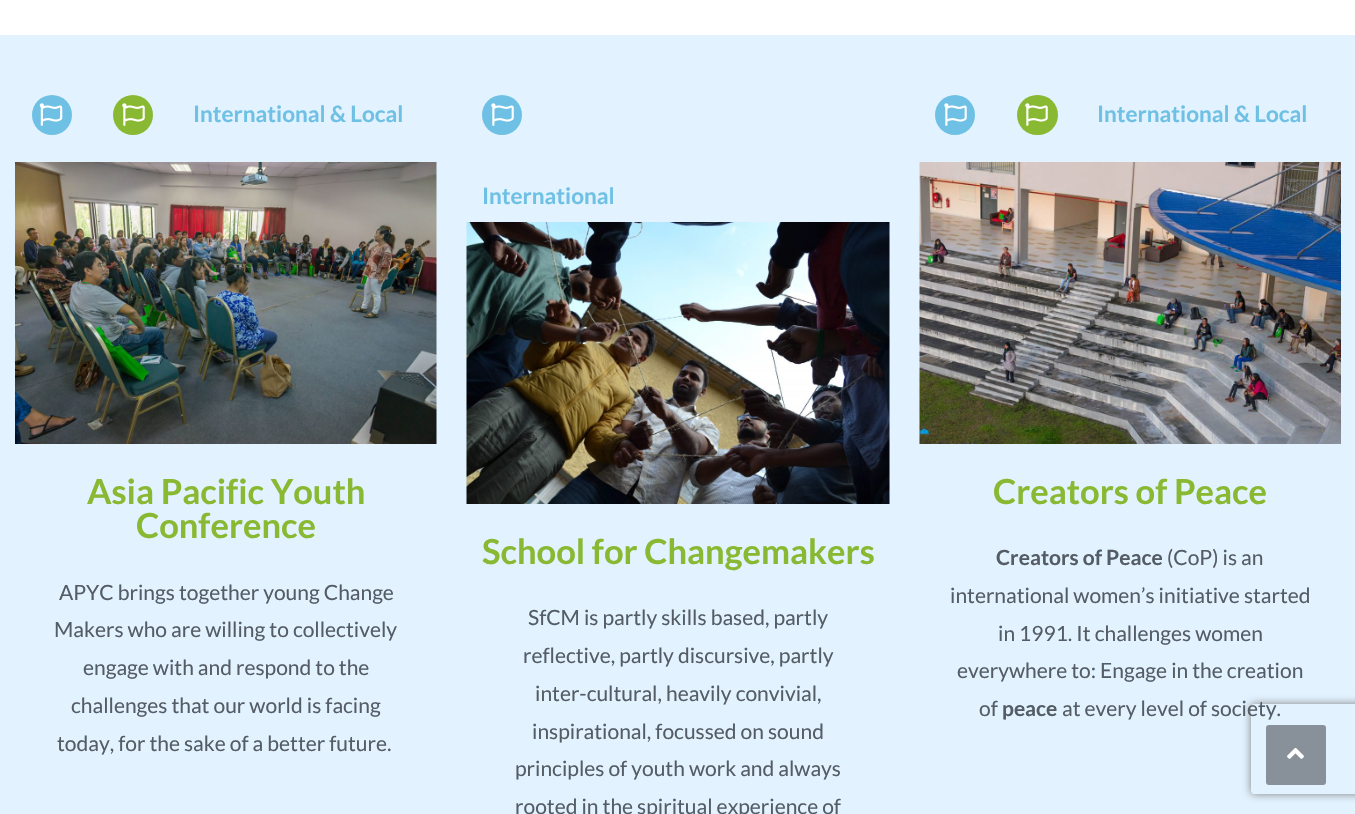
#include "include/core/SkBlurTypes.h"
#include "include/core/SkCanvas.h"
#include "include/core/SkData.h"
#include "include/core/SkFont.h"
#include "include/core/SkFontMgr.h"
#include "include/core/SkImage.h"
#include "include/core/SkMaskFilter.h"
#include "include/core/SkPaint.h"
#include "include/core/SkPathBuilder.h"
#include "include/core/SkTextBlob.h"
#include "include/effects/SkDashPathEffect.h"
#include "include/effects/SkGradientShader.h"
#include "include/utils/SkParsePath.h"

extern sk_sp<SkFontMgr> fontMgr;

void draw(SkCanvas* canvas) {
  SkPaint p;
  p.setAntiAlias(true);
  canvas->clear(SK_ColorWHITE);
  p.setColor(SkColorSetRGB(226, 242, 255));
  canvas->drawRect(SkRect::MakeLTRB(0, 35, 1355, 814), p);
  p.setColor(SkColorSetRGB(110, 193, 228));
  canvas->drawCircle(52, 115, 20, p);
  canvas->drawImageRect(SkImages::DeferredFromEncodedData(SkData::MakeFromFileName("images/1.png")), SkRect::MakeLTRB(39, 103, 63, 126), SkSamplingOptions());
  p.setColor(SkColorSetRGB(137, 185, 50));
  canvas->drawCircle(133, 115, 20, p);
  canvas->drawImageRect(SkImages::DeferredFromEncodedData(SkData::MakeFromFileName("images/2.png")), SkRect::MakeLTRB(122, 103, 145, 126), SkSamplingOptions());
  canvas->drawImageRect(SkImages::DeferredFromEncodedData(SkData::MakeFromFileName("images/3.png")), SkRect::MakeLTRB(15, 162, 437, 444), SkSamplingOptions());
  p.setColor(SkColorSetRGB(110, 193, 228));
  canvas->drawCircle(502, 115, 20, p);
  canvas->drawImageRect(SkImages::DeferredFromEncodedData(SkData::MakeFromFileName("images/4.png")), SkRect::MakeLTRB(491, 103, 514, 126), SkSamplingOptions());
  canvas->drawImageRect(SkImages::DeferredFromEncodedData(SkData::MakeFromFileName("images/5.png")), SkRect::MakeLTRB(466, 222, 890, 504), SkSamplingOptions());
  canvas->drawCircle(955, 115, 20, p);
  canvas->drawImageRect(SkImages::DeferredFromEncodedData(SkData::MakeFromFileName("images/4.png")), SkRect::MakeLTRB(944, 103, 967, 126), SkSamplingOptions());
  p.setColor(SkColorSetRGB(137, 185, 50));
  canvas->drawRoundRect(SkRect::MakeLTRB(1017, 95, 1058, 135), 20, 20, p);
  canvas->drawImageRect(SkImages::DeferredFromEncodedData(SkData::MakeFromFileName("images/2.png")), SkRect::MakeLTRB(1025, 103, 1048, 126), SkSamplingOptions());
  canvas->drawImageRect(SkImages::DeferredFromEncodedData(SkData::MakeFromFileName("images/6.png")), SkRect::MakeLTRB(919, 162, 1341, 444), SkSamplingOptions());
  canvas->save();
  canvas->clipPath(SkPathBuilder(SkPathFillType::kEvenOdd).moveTo(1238, 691).lineTo(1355, 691).lineTo(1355, 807).lineTo(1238, 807).close().moveTo(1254, 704).lineTo(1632, 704).cubicTo(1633.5f, 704, 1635, 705.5f, 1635, 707).lineTo(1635, 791).cubicTo(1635, 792.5f, 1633.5f, 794, 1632, 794).lineTo(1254, 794).cubicTo(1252.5f, 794, 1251, 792.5f, 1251, 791).lineTo(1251, 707).cubicTo(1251, 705.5f, 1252.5f, 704, 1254, 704).close().detach(), true);
  p.setColor(SkColorSetRGB(128, 128, 128));
  p.setMaskFilter(SkMaskFilter::MakeBlur(kNormal_SkBlurStyle, 4));
  canvas->drawRoundRect(SkRect::MakeLTRB(1251, 704, 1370, 794), 3, 3, p);
  p.setMaskFilter(nullptr);
  canvas->restore();
  p.setColor(SkColorSetRGB(136, 145, 153));
  canvas->drawRoundRect(SkRect::MakeLTRB(1266, 725, 1326, 785), 3, 3, p);
  canvas->drawImageRect(SkImages::DeferredFromEncodedData(SkData::MakeFromFileName("images/7.png")), SkRect::MakeLTRB(1287, 748, 1304, 759), SkSamplingOptions());
  SkFont font1(fontMgr->matchFamilyStyle("Lato", SkFontStyle::Bold()), 22.5f);
  font1.setSubpixel(true);
  p.setColor(SkColorSetRGB(110, 193, 228));
  canvas->drawString("International & Local", 193, 122, font1, p);
  SkFont font2(fontMgr->matchFamilyStyle("Lato", SkFontStyle::Bold()), 34.5f);
  font2.setSubpixel(true);
  p.setColor(SkColorSetRGB(137, 185, 50));
  canvas->drawString("Asia Pacific Youth", 87, 504, font2, p);
  canvas->drawString("Conference", 136, 538, font2, p);
  SkFont font3(fontMgr->matchFamilyStyle("Lato", SkFontStyle::Normal()), 21);
  font3.setSubpixel(true);
  p.setColor(SkColorSetRGB(84, 93, 102));
  canvas->drawString("APYC brings together young Change", 59, 600, font3, p);
  canvas->drawString("Makers who are willing to collectively", 54, 637, font3, p);
  canvas->drawString("engage with and respond to the", 83, 675, font3, p);
  canvas->drawString("challenges that our world is facing", 71, 713, font3, p);
  canvas->drawString("today, for the sake of a better future.", 57, 751, font3, p);
  p.setColor(SkColorSetRGB(110, 193, 228));
  canvas->drawString("International", 482, 204, font1, p);
  p.setColor(SkColorSetRGB(137, 185, 50));
  canvas->drawString("School for Changemakers", 482, 564, font2, p);
  p.setColor(SkColorSetRGB(84, 93, 102));
  canvas->drawString("SfCM is partly skills based, partly", 528, 625, font3, p);
  canvas->drawString("reflective, partly discursive, partly", 523, 663, font3, p);
  canvas->drawString("inter-cultural, heavily convivial,", 535, 701, font3, p);
  canvas->drawString("inspirational, focussed on sound", 532, 739, font3, p);
  canvas->drawString("principles of youth work and always", 515, 776, font3, p);
  canvas->drawString("rooted in the spiritual experience of", 515, 814, font3, p);
  p.setColor(SkColorSetRGB(110, 193, 228));
  canvas->drawString("International & Local", 1097, 122, font1, p);
  p.setColor(SkColorSetRGB(137, 185, 50));
  canvas->drawString("Creators of Peace", 993, 504, font2, p);
  SkFont font4(fontMgr->matchFamilyStyle("Lato", SkFontStyle::Bold()), 21);
  font4.setSubpixel(true);
  p.setColor(SkColorSetRGB(84, 93, 102));
  canvas->drawString("Creators of Peace", 996, 565, font4, p);
  canvas->drawString("(CoP) is an", 1167, 565, font3, p);
  canvas->drawString("international women’s initiative started", 950, 603, font3, p);
  canvas->drawString("in 1991. It challenges women", 998, 641, font3, p);
  canvas->drawString("everywhere to: Engage in the creation", 957, 678, font3, p);
  canvas->drawString("of", 979, 716, font3, p);
  canvas->drawString("peace", 1002, 716, font4, p);
  canvas->drawString("at every level of society.", 1062, 716, font3, p);
}
